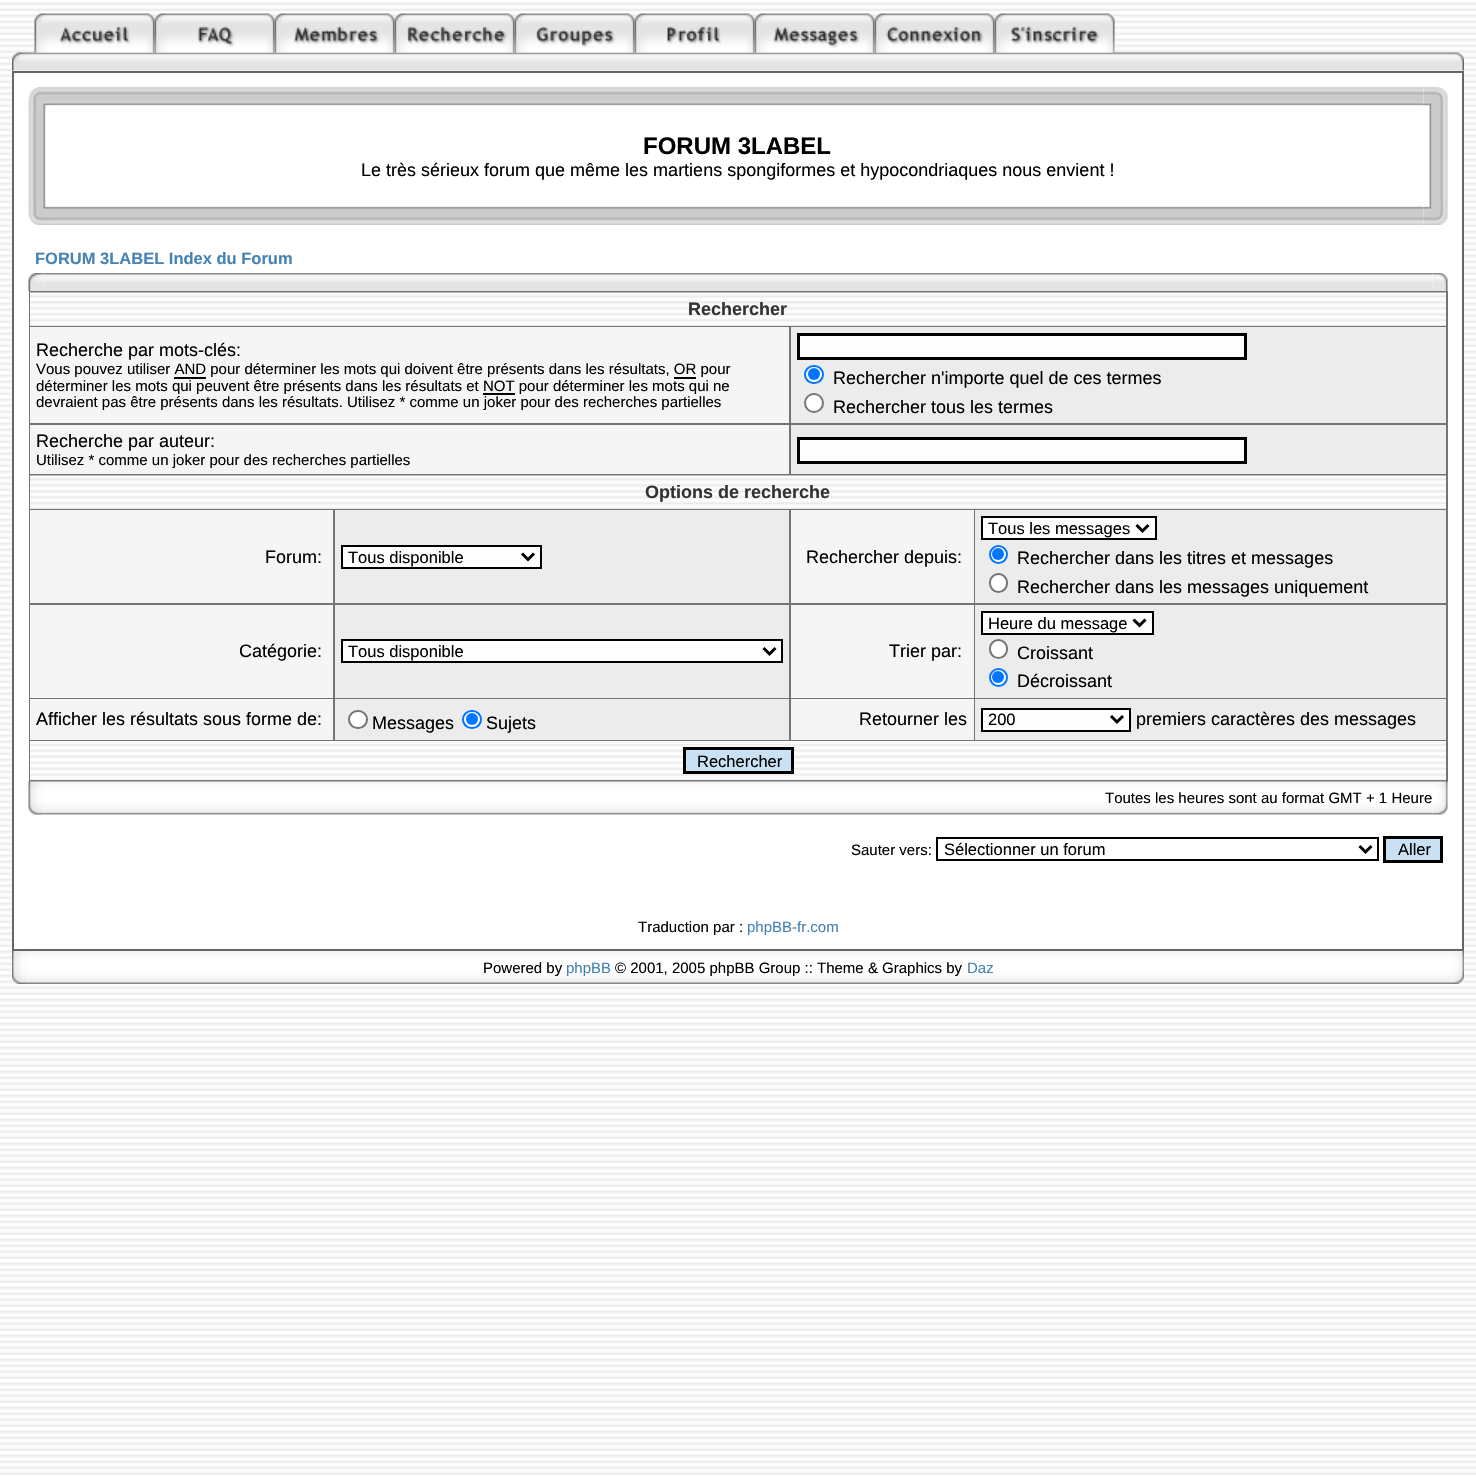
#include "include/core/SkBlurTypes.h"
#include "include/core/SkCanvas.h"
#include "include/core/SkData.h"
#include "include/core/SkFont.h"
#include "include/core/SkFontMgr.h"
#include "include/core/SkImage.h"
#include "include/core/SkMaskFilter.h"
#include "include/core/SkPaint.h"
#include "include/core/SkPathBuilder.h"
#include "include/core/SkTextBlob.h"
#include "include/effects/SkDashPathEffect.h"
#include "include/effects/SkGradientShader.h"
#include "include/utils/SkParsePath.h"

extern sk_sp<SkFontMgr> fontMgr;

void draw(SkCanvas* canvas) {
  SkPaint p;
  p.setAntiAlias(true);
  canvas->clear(SK_ColorWHITE);
  canvas->drawImageRect(SkImages::DeferredFromEncodedData(SkData::MakeFromFileName("images/1.png")), SkRect::MakeLTRB(0, 2, 1476, 1476), SkSamplingOptions());
  canvas->drawImageRect(SkImages::DeferredFromEncodedData(SkData::MakeFromFileName("images/12.png")), SkRect::MakeLTRB(27, 52, 1449, 71), SkSamplingOptions());
  canvas->drawImageRect(SkImages::DeferredFromEncodedData(SkData::MakeFromFileName("images/2.png")), SkRect::MakeLTRB(34, 13, 155, 53), SkSamplingOptions());
  canvas->drawImageRect(SkImages::DeferredFromEncodedData(SkData::MakeFromFileName("images/3.png")), SkRect::MakeLTRB(154, 13, 275, 53), SkSamplingOptions());
  canvas->drawImageRect(SkImages::DeferredFromEncodedData(SkData::MakeFromFileName("images/4.png")), SkRect::MakeLTRB(274, 13, 395, 53), SkSamplingOptions());
  canvas->drawImageRect(SkImages::DeferredFromEncodedData(SkData::MakeFromFileName("images/5.png")), SkRect::MakeLTRB(394, 13, 515, 53), SkSamplingOptions());
  canvas->drawImageRect(SkImages::DeferredFromEncodedData(SkData::MakeFromFileName("images/6.png")), SkRect::MakeLTRB(514, 13, 635, 53), SkSamplingOptions());
  canvas->drawImageRect(SkImages::DeferredFromEncodedData(SkData::MakeFromFileName("images/7.png")), SkRect::MakeLTRB(634, 13, 755, 53), SkSamplingOptions());
  canvas->drawImageRect(SkImages::DeferredFromEncodedData(SkData::MakeFromFileName("images/8.png")), SkRect::MakeLTRB(754, 13, 875, 53), SkSamplingOptions());
  canvas->drawImageRect(SkImages::DeferredFromEncodedData(SkData::MakeFromFileName("images/9.png")), SkRect::MakeLTRB(874, 13, 995, 53), SkSamplingOptions());
  canvas->drawImageRect(SkImages::DeferredFromEncodedData(SkData::MakeFromFileName("images/10.png")), SkRect::MakeLTRB(994, 13, 1115, 53), SkSamplingOptions());
  canvas->drawImageRect(SkImages::DeferredFromEncodedData(SkData::MakeFromFileName("images/11.png")), SkRect::MakeLTRB(12, 52, 27, 71), SkSamplingOptions());
  canvas->drawImageRect(SkImages::DeferredFromEncodedData(SkData::MakeFromFileName("images/13.png")), SkRect::MakeLTRB(1449, 52, 1464, 71), SkSamplingOptions());
  p.setColor(SK_ColorWHITE);
  canvas->drawRect(SkRect::MakeLTRB(14, 73, 1462, 948), p);
  p.setStyle(SkPaint::kStroke_Style);
  p.setStrokeWidth(2);
  p.setColor(SkColorSetRGB(102, 102, 102));
  canvas->drawRect(SkRect::MakeLTRB(13, 72, 1463, 950), p);
  canvas->drawImageRect(SkImages::DeferredFromEncodedData(SkData::MakeFromFileName("images/14.png")), SkRect::MakeLTRB(28, 87, 51, 111), SkSamplingOptions());
  canvas->drawImageRect(SkImages::DeferredFromEncodedData(SkData::MakeFromFileName("images/15.png")), SkRect::MakeLTRB(51, 87, 1424, 106), SkSamplingOptions());
  canvas->drawImageRect(SkImages::DeferredFromEncodedData(SkData::MakeFromFileName("images/16.png")), SkRect::MakeLTRB(1423, 87, 1448, 111), SkSamplingOptions());
  canvas->drawImageRect(SkImages::DeferredFromEncodedData(SkData::MakeFromFileName("images/17.png")), SkRect::MakeLTRB(28, 111, 46, 201), SkSamplingOptions());
  canvas->drawImageRect(SkImages::DeferredFromEncodedData(SkData::MakeFromFileName("images/18.png")), SkRect::MakeLTRB(1429, 111, 1448, 201), SkSamplingOptions());
  canvas->drawImageRect(SkImages::DeferredFromEncodedData(SkData::MakeFromFileName("images/19.png")), SkRect::MakeLTRB(28, 201, 51, 225), SkSamplingOptions());
  canvas->drawImageRect(SkImages::DeferredFromEncodedData(SkData::MakeFromFileName("images/20.png")), SkRect::MakeLTRB(51, 206, 1424, 225), SkSamplingOptions());
  canvas->drawImageRect(SkImages::DeferredFromEncodedData(SkData::MakeFromFileName("images/21.png")), SkRect::MakeLTRB(1423, 201, 1448, 225), SkSamplingOptions());
  canvas->drawImageRect(SkImages::DeferredFromEncodedData(SkData::MakeFromFileName("images/23.png")), SkRect::MakeLTRB(43, 273, 1433, 291), SkSamplingOptions());
  canvas->drawImageRect(SkImages::DeferredFromEncodedData(SkData::MakeFromFileName("images/22.png")), SkRect::MakeLTRB(28, 273, 44, 291), SkSamplingOptions());
  canvas->drawImageRect(SkImages::DeferredFromEncodedData(SkData::MakeFromFileName("images/24.png")), SkRect::MakeLTRB(1432, 273, 1448, 291), SkSamplingOptions());
  p.setStyle(SkPaint::kFill_Style);
  p.setColor(SkColorSetRGB(117, 117, 117));
  canvas->drawRect(SkRect::MakeLTRB(29, 291, 1448, 782), p);
  p.setColor(SkColorSetRGB(218, 218, 218));
  canvas->drawRect(SkRect::MakeLTRB(30, 325, 1446, 326), p);
  canvas->drawImageRect(SkImages::DeferredFromEncodedData(SkData::MakeFromFileName("images/25.png")), SkRect::MakeLTRB(30, 292, 1446, 326), SkSamplingOptions());
  p.setColor(SkColorSetRGB(245, 245, 245));
  canvas->drawRect(SkRect::MakeLTRB(30, 327, 789, 423), p);
  p.setColor(SK_ColorBLACK);
  canvas->drawRect(SkRect::MakeLTRB(174, 377, 206, 379), p);
  canvas->drawRect(SkRect::MakeLTRB(674, 377, 696, 379), p);
  canvas->drawRect(SkRect::MakeLTRB(483, 393, 515, 395), p);
  p.setColor(SkColorSetRGB(236, 236, 236));
  canvas->drawRect(SkRect::MakeLTRB(791, 327, 1446, 423), p);
  p.setColor(SkColorSetRGB(254, 254, 254));
  canvas->drawRect(SkRect::MakeLTRB(798.5f, 334.5f, 1245.5f, 358.5f), p);
  p.setStyle(SkPaint::kStroke_Style);
  p.setStrokeWidth(3);
  p.setColor(SK_ColorBLACK);
  canvas->drawRect(SkRect::MakeLTRB(798.5f, 334.5f, 1245.5f, 358.5f), p);
  p.setStyle(SkPaint::kFill_Style);
  p.setColor(SK_ColorWHITE);
  canvas->drawRoundRect(SkRect::MakeLTRB(805, 366, 823, 383), 8.5f, 8.5f, p);
  p.setStyle(SkPaint::kStroke_Style);
  p.setStrokeWidth(2);
  p.setColor(SkColorSetRGB(0, 117, 255));
  canvas->drawRoundRect(SkRect::MakeLTRB(805, 366, 823, 383), 8.5f, 8.5f, p);
  p.setStyle(SkPaint::kFill_Style);
  canvas->drawCircle(814, 374, 6, p);
  p.setColor(SK_ColorWHITE);
  canvas->drawCircle(814, 403, 9, p);
  p.setStyle(SkPaint::kStroke_Style);
  p.setColor(SkColorSetRGB(118, 118, 118));
  canvas->drawCircle(814, 403, 9, p);
  p.setStyle(SkPaint::kFill_Style);
  p.setColor(SkColorSetRGB(245, 245, 245));
  canvas->drawRect(SkRect::MakeLTRB(30, 425, 789, 474), p);
  p.setColor(SkColorSetRGB(236, 236, 236));
  canvas->drawRect(SkRect::MakeLTRB(791, 425, 1446, 474), p);
  p.setColor(SkColorSetRGB(254, 254, 254));
  canvas->drawRect(SkRect::MakeLTRB(798.5f, 438.5f, 1245.5f, 462.5f), p);
  p.setStyle(SkPaint::kStroke_Style);
  p.setStrokeWidth(3);
  p.setColor(SK_ColorBLACK);
  canvas->drawRect(SkRect::MakeLTRB(798.5f, 438.5f, 1245.5f, 462.5f), p);
  p.setStyle(SkPaint::kFill_Style);
  p.setColor(SkColorSetRGB(218, 218, 218));
  canvas->drawRect(SkRect::MakeLTRB(30, 508, 1446, 509), p);
  canvas->drawImageRect(SkImages::DeferredFromEncodedData(SkData::MakeFromFileName("images/25.png")), SkRect::MakeLTRB(30, 475, 1446, 509), SkSamplingOptions());
  p.setColor(SkColorSetRGB(245, 245, 245));
  canvas->drawRect(SkRect::MakeLTRB(30, 510, 333, 603), p);
  p.setColor(SkColorSetRGB(236, 236, 236));
  canvas->drawRect(SkRect::MakeLTRB(335, 510, 789, 603), p);
  p.setColor(SkColorSetRGB(254, 254, 254));
  canvas->drawRect(SkRect::MakeLTRB(342, 546, 541, 568), p);
  p.setStyle(SkPaint::kStroke_Style);
  p.setStrokeWidth(2);
  p.setColor(SK_ColorBLACK);
  canvas->drawRect(SkRect::MakeLTRB(342, 546, 541, 568), p);
  p.setStrokeWidth(3);
  canvas->drawPath(SkPathBuilder().moveTo(522, 553.5f).lineTo(528, 559.5f).lineTo(534, 553.5f).detach(), p);
  p.setStyle(SkPaint::kFill_Style);
  p.setColor(SkColorSetRGB(245, 245, 245));
  canvas->drawRect(SkRect::MakeLTRB(791, 510, 974, 603), p);
  p.setColor(SkColorSetRGB(236, 236, 236));
  canvas->drawRect(SkRect::MakeLTRB(975, 510, 1446, 603), p);
  p.setColor(SkColorSetRGB(254, 254, 254));
  canvas->drawRect(SkRect::MakeLTRB(982, 517, 1156, 539), p);
  p.setStyle(SkPaint::kStroke_Style);
  p.setStrokeWidth(2);
  p.setColor(SK_ColorBLACK);
  canvas->drawRect(SkRect::MakeLTRB(982, 517, 1156, 539), p);
  p.setStrokeWidth(3);
  canvas->drawPath(SkPathBuilder().moveTo(1136.5f, 525).lineTo(1142.5f, 531).lineTo(1148.5f, 525).detach(), p);
  p.setStyle(SkPaint::kFill_Style);
  p.setColor(SK_ColorWHITE);
  canvas->drawCircle(998.5f, 554.5f, 8.5f, p);
  p.setStyle(SkPaint::kStroke_Style);
  p.setStrokeWidth(2);
  p.setColor(SkColorSetRGB(0, 117, 255));
  canvas->drawCircle(998.5f, 554.5f, 8.5f, p);
  p.setStyle(SkPaint::kFill_Style);
  canvas->drawCircle(998, 554, 6, p);
  p.setColor(SK_ColorWHITE);
  canvas->drawRoundRect(SkRect::MakeLTRB(990, 574, 1007, 592), 8.5f, 8.5f, p);
  p.setStyle(SkPaint::kStroke_Style);
  p.setColor(SkColorSetRGB(118, 118, 118));
  canvas->drawRoundRect(SkRect::MakeLTRB(990, 574, 1007, 592), 8.5f, 8.5f, p);
  p.setStyle(SkPaint::kFill_Style);
  p.setColor(SkColorSetRGB(245, 245, 245));
  canvas->drawRect(SkRect::MakeLTRB(30, 605, 333, 698), p);
  p.setColor(SkColorSetRGB(236, 236, 236));
  canvas->drawRect(SkRect::MakeLTRB(335, 605, 789, 698), p);
  p.setColor(SkColorSetRGB(254, 254, 254));
  canvas->drawRect(SkRect::MakeLTRB(342, 640, 782, 662), p);
  p.setStyle(SkPaint::kStroke_Style);
  p.setColor(SK_ColorBLACK);
  canvas->drawRect(SkRect::MakeLTRB(342, 640, 782, 662), p);
  p.setStrokeWidth(3);
  canvas->drawPath(SkPathBuilder().moveTo(763.5f, 648).lineTo(769.5f, 654).lineTo(775.5f, 648).detach(), p);
  p.setStyle(SkPaint::kFill_Style);
  p.setColor(SkColorSetRGB(245, 245, 245));
  canvas->drawRect(SkRect::MakeLTRB(791, 605, 974, 698), p);
  p.setColor(SkColorSetRGB(236, 236, 236));
  canvas->drawRect(SkRect::MakeLTRB(975, 605, 1446, 698), p);
  p.setColor(SkColorSetRGB(254, 254, 254));
  canvas->drawRect(SkRect::MakeLTRB(982, 612, 1153, 634), p);
  p.setStyle(SkPaint::kStroke_Style);
  p.setStrokeWidth(2);
  p.setColor(SK_ColorBLACK);
  canvas->drawRect(SkRect::MakeLTRB(982, 612, 1153, 634), p);
  p.setStrokeWidth(3);
  canvas->drawPath(SkPathBuilder().moveTo(1133.5f, 619.5f).lineTo(1139.5f, 625.5f).lineTo(1145.5f, 619.5f).detach(), p);
  p.setStyle(SkPaint::kFill_Style);
  p.setColor(SK_ColorWHITE);
  canvas->drawRoundRect(SkRect::MakeLTRB(990, 640, 1007, 658), 8.5f, 8.5f, p);
  p.setStyle(SkPaint::kStroke_Style);
  p.setStrokeWidth(2);
  p.setColor(SkColorSetRGB(118, 118, 118));
  canvas->drawRoundRect(SkRect::MakeLTRB(990, 640, 1007, 658), 8.5f, 8.5f, p);
  p.setStyle(SkPaint::kFill_Style);
  p.setColor(SK_ColorWHITE);
  canvas->drawCircle(998.5f, 677.5f, 8.5f, p);
  p.setStyle(SkPaint::kStroke_Style);
  p.setColor(SkColorSetRGB(0, 117, 255));
  canvas->drawCircle(998.5f, 677.5f, 8.5f, p);
  p.setStyle(SkPaint::kFill_Style);
  canvas->drawCircle(998, 677, 6, p);
  p.setColor(SkColorSetRGB(245, 245, 245));
  canvas->drawRect(SkRect::MakeLTRB(30, 699, 333, 740), p);
  p.setColor(SkColorSetRGB(236, 236, 236));
  canvas->drawRect(SkRect::MakeLTRB(335, 699, 789, 740), p);
  p.setColor(SK_ColorWHITE);
  canvas->drawRoundRect(SkRect::MakeLTRB(349, 711, 367, 728), 8.5f, 8.5f, p);
  p.setStyle(SkPaint::kStroke_Style);
  p.setColor(SkColorSetRGB(118, 118, 118));
  canvas->drawRoundRect(SkRect::MakeLTRB(349, 711, 367, 728), 8.5f, 8.5f, p);
  p.setStyle(SkPaint::kFill_Style);
  p.setColor(SK_ColorWHITE);
  canvas->drawRoundRect(SkRect::MakeLTRB(463, 711, 481, 728), 8.5f, 8.5f, p);
  p.setStyle(SkPaint::kStroke_Style);
  p.setColor(SkColorSetRGB(0, 117, 255));
  canvas->drawRoundRect(SkRect::MakeLTRB(463, 711, 481, 728), 8.5f, 8.5f, p);
  p.setStyle(SkPaint::kFill_Style);
  canvas->drawCircle(472, 719, 6, p);
  p.setColor(SkColorSetRGB(245, 245, 245));
  canvas->drawRect(SkRect::MakeLTRB(791, 699, 974, 740), p);
  p.setColor(SkColorSetRGB(236, 236, 236));
  canvas->drawRect(SkRect::MakeLTRB(975, 699, 1446, 740), p);
  p.setColor(SkColorSetRGB(254, 254, 254));
  canvas->drawRect(SkRect::MakeLTRB(982, 709, 1130, 731), p);
  p.setStyle(SkPaint::kStroke_Style);
  p.setColor(SK_ColorBLACK);
  canvas->drawRect(SkRect::MakeLTRB(982, 709, 1130, 731), p);
  p.setStrokeWidth(3);
  canvas->drawPath(SkPathBuilder().moveTo(1111, 716).lineTo(1117, 722).lineTo(1123, 716).detach(), p);
  canvas->drawImageRect(SkImages::DeferredFromEncodedData(SkData::MakeFromFileName("images/26.png")), SkRect::MakeLTRB(30, 741, 1446, 780), SkSamplingOptions());
  p.setStyle(SkPaint::kFill_Style);
  p.setColor(SkColorSetRGB(201, 225, 243));
  canvas->drawRect(SkRect::MakeLTRB(684.5f, 748.5f, 792.5f, 772.5f), p);
  p.setStyle(SkPaint::kStroke_Style);
  p.setColor(SK_ColorBLACK);
  canvas->drawRect(SkRect::MakeLTRB(684.5f, 748.5f, 792.5f, 772.5f), p);
  canvas->drawImageRect(SkImages::DeferredFromEncodedData(SkData::MakeFromFileName("images/28.png")), SkRect::MakeLTRB(43, 781, 1433, 815), SkSamplingOptions());
  canvas->drawImageRect(SkImages::DeferredFromEncodedData(SkData::MakeFromFileName("images/27.png")), SkRect::MakeLTRB(28, 781, 44, 815), SkSamplingOptions());
  canvas->drawImageRect(SkImages::DeferredFromEncodedData(SkData::MakeFromFileName("images/29.png")), SkRect::MakeLTRB(1432, 781, 1448, 815), SkSamplingOptions());
  p.setStrokeWidth(2);
  canvas->drawRect(SkRect::MakeLTRB(937, 838, 1378, 860), p);
  p.setStrokeWidth(3);
  canvas->drawPath(SkPathBuilder().moveTo(1359.5f, 846).lineTo(1365.5f, 852).lineTo(1371.5f, 846).detach(), p);
  p.setStyle(SkPaint::kFill_Style);
  p.setColor(SkColorSetRGB(201, 225, 243));
  canvas->drawRect(SkRect::MakeLTRB(1384.5f, 837.5f, 1441.5f, 861.5f), p);
  p.setStyle(SkPaint::kStroke_Style);
  p.setColor(SK_ColorBLACK);
  canvas->drawRect(SkRect::MakeLTRB(1384.5f, 837.5f, 1441.5f, 861.5f), p);
  canvas->drawImageRect(SkImages::DeferredFromEncodedData(SkData::MakeFromFileName("images/30.png")), SkRect::MakeLTRB(12, 951, 27, 984), SkSamplingOptions());
  canvas->drawImageRect(SkImages::DeferredFromEncodedData(SkData::MakeFromFileName("images/31.png")), SkRect::MakeLTRB(27, 951, 1449, 984), SkSamplingOptions());
  canvas->drawImageRect(SkImages::DeferredFromEncodedData(SkData::MakeFromFileName("images/32.png")), SkRect::MakeLTRB(1449, 951, 1464, 984), SkSamplingOptions());
  SkFont font1(fontMgr->matchFamilyStyle("Liberation Sans", SkFontStyle::Bold()), 24);
  font1.setSubpixel(true);
  p.setStyle(SkPaint::kFill_Style);
  canvas->drawString("FORUM 3LABEL", 643, 154, font1, p);
  SkFont font2(fontMgr->matchFamilyStyle("Liberation Sans", SkFontStyle::Normal()), 18);
  font2.setSubpixel(true);
  canvas->drawString("Le très sérieux forum que même les martiens spongiformes et hypocondriaques nous envient !", 361, 176, font2, p);
  SkFont font3(fontMgr->matchFamilyStyle("Liberation Sans", SkFontStyle::Bold()), 16.5f);
  font3.setSubpixel(true);
  p.setColor(SkColorSetRGB(70, 130, 180));
  canvas->drawString("FORUM 3LABEL Index du Forum", 35, 264, font3, p);
  SkFont font4(fontMgr->matchFamilyStyle("Liberation Sans", SkFontStyle::Bold()), 18);
  font4.setSubpixel(true);
  p.setColor(SkColorSetRGB(51, 51, 51));
  canvas->drawString("Rechercher", 688, 315, font4, p);
  p.setColor(SK_ColorBLACK);
  canvas->drawString("Recherche par mots-clés:", 36, 356, font2, p);
  SkFont font5(fontMgr->matchFamilyStyle("Liberation Sans", SkFontStyle::Normal()), 15);
  font5.setSubpixel(true);
  canvas->drawString("Vous pouvez utiliser AND pour déterminer les mots qui doivent être présents dans les résultats, OR pour", 36, 374, font5, p);
  canvas->drawString("déterminer les mots qui peuvent être présents dans les résultats et NOT pour déterminer les mots qui ne", 36, 391, font5, p);
  canvas->drawString("devraient pas être présents dans les résultats. Utilisez * comme un joker pour des recherches partielles", 36, 407, font5, p);
  canvas->drawString("Rechercher n'importe quel de ces termes", 833, 384, font2, p);
  canvas->drawString("Rechercher tous les termes", 833, 413, font2, p);
  canvas->drawString("Recherche par auteur:", 36, 447, font2, p);
  canvas->drawString("Utilisez * comme un joker pour des recherches partielles", 36, 465, font5, p);
  p.setColor(SkColorSetRGB(51, 51, 51));
  canvas->drawString("Options de recherche", 645, 498, font4, p);
  p.setColor(SK_ColorBLACK);
  canvas->drawString("Forum:", 265, 563, font2, p);
  SkFont font6(fontMgr->matchFamilyStyle("Liberation Sans", SkFontStyle::Normal()), 16.5f);
  font6.setSubpixel(true);
  canvas->drawString("Tous disponible", 348, 563, font6, p);
  canvas->drawString("Rechercher depuis:", 806, 563, font2, p);
  canvas->drawString("Tous les messages", 988, 534, font6, p);
  canvas->drawString("Rechercher dans les titres et messages", 1017, 564, font2, p);
  canvas->drawString("Rechercher dans les messages uniquement", 1017, 593, font2, p);
  canvas->drawString("Catégorie:", 239, 657, font2, p);
  canvas->drawString("Tous disponible", 348, 657, font6, p);
  canvas->drawString("Trier par:", 889, 657, font2, p);
  canvas->drawString("Heure du message", 988, 629, font6, p);
  canvas->drawString("Croissant", 1017, 659, font2, p);
  canvas->drawString("Décroissant", 1017, 687, font2, p);
  canvas->drawString("Afficher les résultats sous forme de:", 36, 725, font2, p);
  canvas->drawString("Messages", 372, 729, font2, p);
  canvas->drawString("Sujets", 486, 729, font2, p);
  canvas->drawString("Retourner les", 859, 725, font2, p);
  canvas->drawString("200", 988, 725, font6, p);
  canvas->drawString("premiers caractères des messages", 1136, 725, font2, p);
  canvas->drawString("Rechercher", 697, 767, font6, p);
  canvas->drawString("Toutes les heures sont au format GMT + 1 Heure", 1105, 803, font5, p);
  canvas->drawString("Sauter vers:", 851, 855, font5, p);
  canvas->drawString("Sélectionner un forum", 944, 855, font6, p);
  canvas->drawString("Aller", 1398, 855, font6, p);
  canvas->drawString("Traduction par :", 638, 932, font5, p);
  p.setColor(SkColorSetRGB(70, 130, 180));
  canvas->drawString("phpBB-fr.com", 747, 932, font5, p);
  p.setColor(SK_ColorBLACK);
  canvas->drawString("Powered by", 483, 973, font5, p);
  p.setColor(SkColorSetRGB(70, 130, 180));
  canvas->drawString("phpBB", 566, 973, font5, p);
  p.setColor(SK_ColorBLACK);
  canvas->drawString("© 2001, 2005 phpBB Group :: Theme & Graphics by", 615, 973, font5, p);
  p.setColor(SkColorSetRGB(70, 130, 180));
  canvas->drawString("Daz", 967, 973, font5, p);
}
